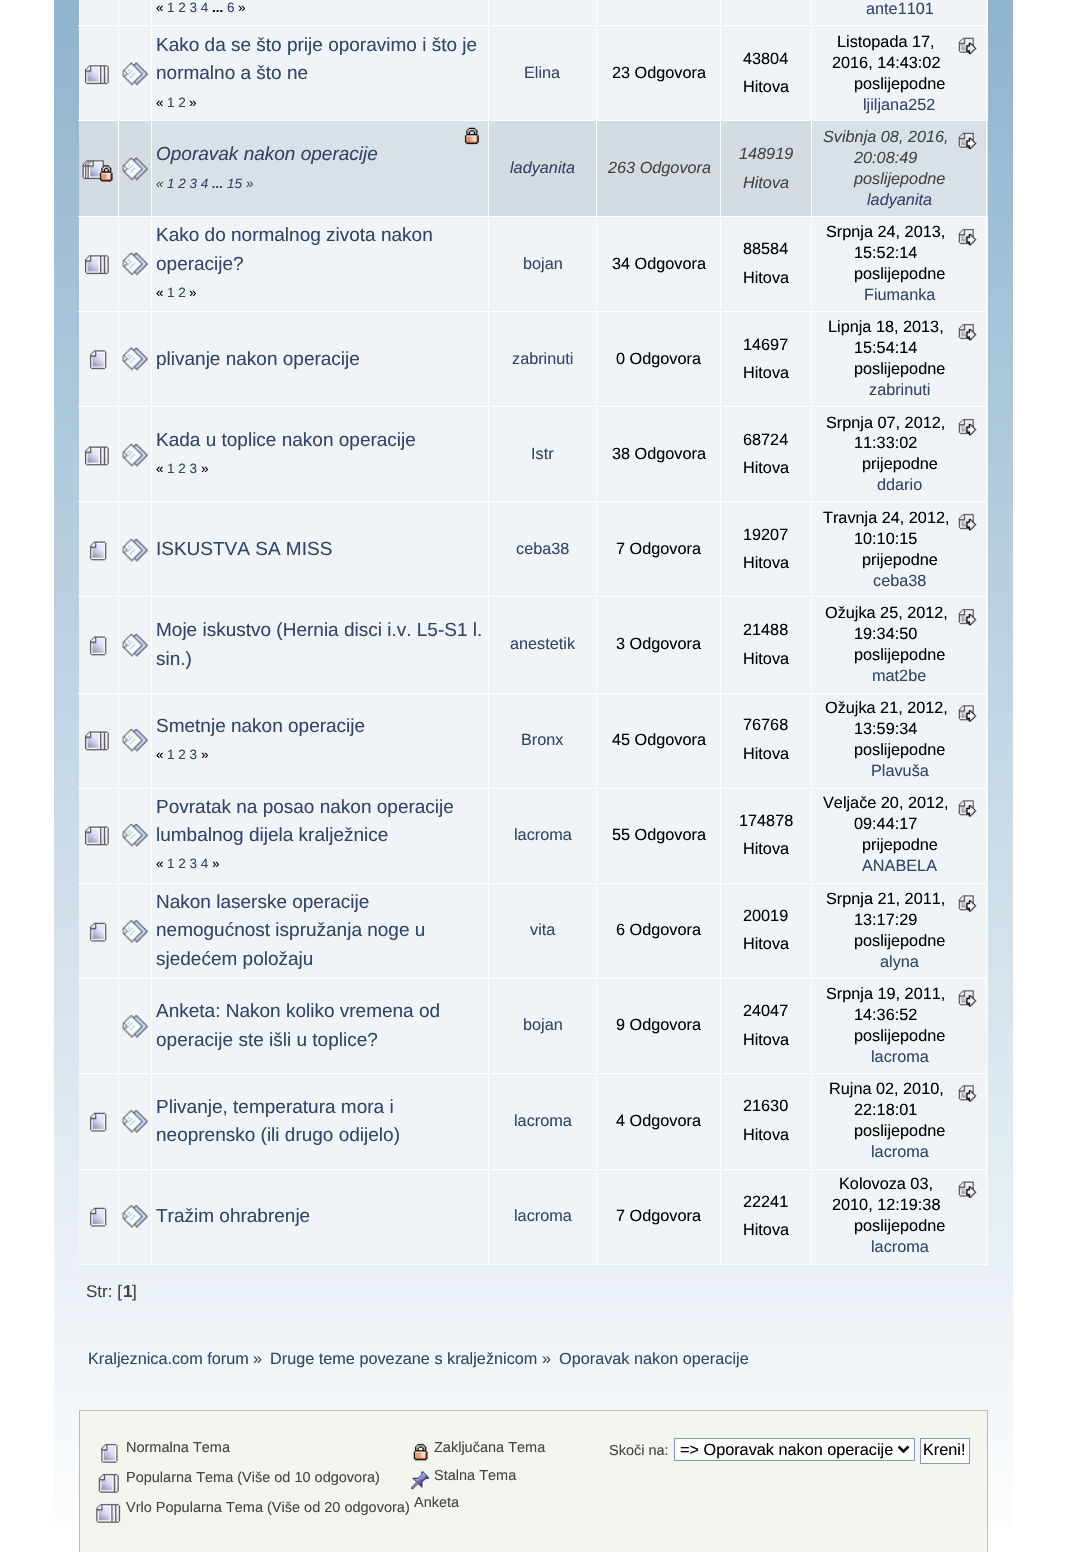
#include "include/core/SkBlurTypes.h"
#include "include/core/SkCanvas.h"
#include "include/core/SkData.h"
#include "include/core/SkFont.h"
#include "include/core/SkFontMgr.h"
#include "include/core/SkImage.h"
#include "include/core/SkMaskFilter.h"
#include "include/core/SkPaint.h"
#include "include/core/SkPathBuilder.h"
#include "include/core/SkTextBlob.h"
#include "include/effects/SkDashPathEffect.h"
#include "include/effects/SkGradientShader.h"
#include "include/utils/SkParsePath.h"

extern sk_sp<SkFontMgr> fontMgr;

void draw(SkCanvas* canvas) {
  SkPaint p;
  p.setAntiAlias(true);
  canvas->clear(SK_ColorWHITE);
  {
    const SkColor colors[] = {SkColorSetRGB(123, 167, 199), SK_ColorWHITE};
    const float stops[] = {0, 1};
    const SkPoint ends[] = {{533, -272}, {533, 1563}};
    p.setShader(SkGradientShader::MakeLinear(ends, colors, stops, 2, SkTileMode::kClamp));
    p.setAlpha(255);
  }
  canvas->drawRect(SkRect::MakeLTRB(54, 0, 1013, 1528), p);
  p.setShader(nullptr);
  p.setColor(SkColorSetRGB(240, 244, 247));
  canvas->drawRect(SkRect::MakeLTRB(79, 0, 118, 25), p);
  canvas->drawRect(SkRect::MakeLTRB(489, 0, 720, 25), p);
  canvas->drawRect(SkRect::MakeLTRB(812, 312, 988, 693), p);
  canvas->drawRect(SkRect::MakeLTRB(812, 0, 988, 25), p);
  canvas->drawRect(SkRect::MakeLTRB(812, 26, 988, 120), p);
  p.setColor(SkColorSetRGB(216, 225, 231));
  canvas->drawRect(SkRect::MakeLTRB(812, 121, 988, 216), p);
  p.setColor(SkColorSetRGB(240, 244, 247));
  canvas->drawRect(SkRect::MakeLTRB(812, 217, 988, 311), p);
  canvas->drawRect(SkRect::MakeLTRB(812, 694, 988, 788), p);
  canvas->drawRect(SkRect::MakeLTRB(812, 789, 988, 883), p);
  canvas->drawRect(SkRect::MakeLTRB(812, 884, 988, 978), p);
  canvas->drawRect(SkRect::MakeLTRB(812, 979, 988, 1073), p);
  canvas->drawRect(SkRect::MakeLTRB(812, 1074, 988, 1169), p);
  canvas->drawRect(SkRect::MakeLTRB(812, 1170, 988, 1264), p);
  p.setColor(SK_ColorWHITE);
  canvas->drawRect(SkRect::MakeLTRB(986, 0, 987, 1265), p);
  canvas->drawRect(SkRect::MakeLTRB(811, 1264, 988, 1265), p);
  canvas->drawRect(SkRect::MakeLTRB(811, 1169, 812, 1265), p);
  canvas->drawRect(SkRect::MakeLTRB(811, 1169, 988, 1170), p);
  canvas->drawRect(SkRect::MakeLTRB(811, 1073, 812, 1170), p);
  canvas->drawRect(SkRect::MakeLTRB(811, 1073, 988, 1074), p);
  canvas->drawRect(SkRect::MakeLTRB(811, 978, 812, 1074), p);
  canvas->drawRect(SkRect::MakeLTRB(811, 978, 988, 979), p);
  canvas->drawRect(SkRect::MakeLTRB(811, 883, 812, 979), p);
  canvas->drawRect(SkRect::MakeLTRB(811, 883, 988, 884), p);
  canvas->drawRect(SkRect::MakeLTRB(811, 788, 812, 884), p);
  canvas->drawRect(SkRect::MakeLTRB(811, 788, 988, 789), p);
  canvas->drawRect(SkRect::MakeLTRB(811, 693, 812, 789), p);
  canvas->drawRect(SkRect::MakeLTRB(811, 693, 988, 694), p);
  canvas->drawRect(SkRect::MakeLTRB(811, 596, 812, 694), p);
  canvas->drawRect(SkRect::MakeLTRB(811, 596, 988, 597), p);
  canvas->drawRect(SkRect::MakeLTRB(811, 501, 812, 598), p);
  canvas->drawRect(SkRect::MakeLTRB(811, 501, 988, 502), p);
  canvas->drawRect(SkRect::MakeLTRB(811, 406, 812, 503), p);
  canvas->drawRect(SkRect::MakeLTRB(811, 406, 988, 407), p);
  canvas->drawRect(SkRect::MakeLTRB(811, 311, 812, 408), p);
  canvas->drawRect(SkRect::MakeLTRB(811, 311, 988, 312), p);
  canvas->drawRect(SkRect::MakeLTRB(811, 216, 812, 313), p);
  canvas->drawRect(SkRect::MakeLTRB(811, 216, 988, 217), p);
  canvas->drawRect(SkRect::MakeLTRB(811, 120, 812, 218), p);
  canvas->drawRect(SkRect::MakeLTRB(811, 120, 988, 121), p);
  canvas->drawRect(SkRect::MakeLTRB(811, 25, 812, 121), p);
  canvas->drawRect(SkRect::MakeLTRB(811, 25, 988, 26), p);
  canvas->drawRect(SkRect::MakeLTRB(811, 0, 812, 26), p);
  p.setColor(SkColorSetRGB(240, 244, 247));
  canvas->drawRect(SkRect::MakeLTRB(721, 312, 811, 693), p);
  p.setColor(SK_ColorWHITE);
  canvas->drawRect(SkRect::MakeLTRB(720, 1264, 813, 1265), p);
  canvas->drawRect(SkRect::MakeLTRB(720, 1169, 721, 1265), p);
  canvas->drawRect(SkRect::MakeLTRB(720, 1169, 813, 1170), p);
  canvas->drawRect(SkRect::MakeLTRB(720, 1073, 721, 1170), p);
  canvas->drawRect(SkRect::MakeLTRB(720, 1073, 813, 1074), p);
  canvas->drawRect(SkRect::MakeLTRB(720, 978, 721, 1074), p);
  canvas->drawRect(SkRect::MakeLTRB(720, 978, 813, 979), p);
  canvas->drawRect(SkRect::MakeLTRB(720, 883, 721, 979), p);
  canvas->drawRect(SkRect::MakeLTRB(720, 883, 813, 884), p);
  canvas->drawRect(SkRect::MakeLTRB(720, 788, 721, 884), p);
  canvas->drawRect(SkRect::MakeLTRB(720, 788, 813, 789), p);
  canvas->drawRect(SkRect::MakeLTRB(720, 693, 721, 789), p);
  canvas->drawRect(SkRect::MakeLTRB(720, 693, 813, 694), p);
  canvas->drawRect(SkRect::MakeLTRB(720, 596, 721, 694), p);
  canvas->drawRect(SkRect::MakeLTRB(720, 596, 813, 597), p);
  canvas->drawRect(SkRect::MakeLTRB(720, 501, 721, 598), p);
  canvas->drawRect(SkRect::MakeLTRB(720, 501, 813, 502), p);
  canvas->drawRect(SkRect::MakeLTRB(720, 406, 721, 503), p);
  canvas->drawRect(SkRect::MakeLTRB(720, 406, 813, 407), p);
  canvas->drawRect(SkRect::MakeLTRB(720, 311, 721, 408), p);
  canvas->drawRect(SkRect::MakeLTRB(720, 311, 813, 312), p);
  canvas->drawRect(SkRect::MakeLTRB(720, 216, 721, 313), p);
  canvas->drawRect(SkRect::MakeLTRB(720, 216, 813, 217), p);
  canvas->drawRect(SkRect::MakeLTRB(720, 120, 721, 218), p);
  canvas->drawRect(SkRect::MakeLTRB(720, 120, 813, 121), p);
  canvas->drawRect(SkRect::MakeLTRB(720, 25, 721, 121), p);
  canvas->drawRect(SkRect::MakeLTRB(720, 25, 813, 26), p);
  canvas->drawRect(SkRect::MakeLTRB(720, 0, 721, 26), p);
  p.setColor(SkColorSetRGB(240, 244, 247));
  canvas->drawRect(SkRect::MakeLTRB(489, 26, 720, 120), p);
  p.setColor(SkColorSetRGB(212, 220, 226));
  canvas->drawRect(SkRect::MakeLTRB(489, 121, 720, 216), p);
  p.setColor(SkColorSetRGB(240, 244, 247));
  canvas->drawRect(SkRect::MakeLTRB(489, 217, 720, 311), p);
  canvas->drawRect(SkRect::MakeLTRB(489, 312, 720, 408), p);
  canvas->drawRect(SkRect::MakeLTRB(489, 408, 720, 503), p);
  canvas->drawRect(SkRect::MakeLTRB(489, 503, 720, 598), p);
  canvas->drawRect(SkRect::MakeLTRB(489, 598, 720, 693), p);
  canvas->drawRect(SkRect::MakeLTRB(489, 694, 720, 788), p);
  canvas->drawRect(SkRect::MakeLTRB(489, 789, 720, 883), p);
  canvas->drawRect(SkRect::MakeLTRB(489, 884, 720, 978), p);
  canvas->drawRect(SkRect::MakeLTRB(489, 979, 720, 1073), p);
  canvas->drawRect(SkRect::MakeLTRB(489, 1074, 720, 1169), p);
  canvas->drawRect(SkRect::MakeLTRB(489, 1170, 720, 1264), p);
  p.setColor(SK_ColorWHITE);
  canvas->drawRect(SkRect::MakeLTRB(596, 1264, 721, 1265), p);
  canvas->drawRect(SkRect::MakeLTRB(596, 1169, 597, 1265), p);
  canvas->drawRect(SkRect::MakeLTRB(596, 1169, 721, 1170), p);
  canvas->drawRect(SkRect::MakeLTRB(596, 1073, 597, 1170), p);
  canvas->drawRect(SkRect::MakeLTRB(596, 1073, 721, 1074), p);
  canvas->drawRect(SkRect::MakeLTRB(596, 978, 597, 1074), p);
  canvas->drawRect(SkRect::MakeLTRB(596, 978, 721, 979), p);
  canvas->drawRect(SkRect::MakeLTRB(596, 883, 597, 979), p);
  canvas->drawRect(SkRect::MakeLTRB(596, 883, 721, 884), p);
  canvas->drawRect(SkRect::MakeLTRB(596, 788, 597, 884), p);
  canvas->drawRect(SkRect::MakeLTRB(596, 788, 721, 789), p);
  canvas->drawRect(SkRect::MakeLTRB(596, 693, 597, 789), p);
  canvas->drawRect(SkRect::MakeLTRB(596, 693, 721, 694), p);
  canvas->drawRect(SkRect::MakeLTRB(596, 596, 597, 694), p);
  canvas->drawRect(SkRect::MakeLTRB(596, 596, 721, 597), p);
  canvas->drawRect(SkRect::MakeLTRB(596, 501, 597, 598), p);
  canvas->drawRect(SkRect::MakeLTRB(596, 501, 721, 502), p);
  canvas->drawRect(SkRect::MakeLTRB(596, 406, 597, 503), p);
  canvas->drawRect(SkRect::MakeLTRB(596, 406, 721, 407), p);
  canvas->drawRect(SkRect::MakeLTRB(596, 311, 597, 408), p);
  canvas->drawRect(SkRect::MakeLTRB(596, 311, 721, 312), p);
  canvas->drawRect(SkRect::MakeLTRB(596, 216, 597, 313), p);
  canvas->drawRect(SkRect::MakeLTRB(596, 216, 721, 217), p);
  canvas->drawRect(SkRect::MakeLTRB(596, 120, 597, 218), p);
  canvas->drawRect(SkRect::MakeLTRB(596, 120, 721, 121), p);
  canvas->drawRect(SkRect::MakeLTRB(596, 25, 597, 121), p);
  canvas->drawRect(SkRect::MakeLTRB(596, 25, 721, 26), p);
  canvas->drawRect(SkRect::MakeLTRB(596, 0, 597, 26), p);
  canvas->drawRect(SkRect::MakeLTRB(488, 1264, 598, 1265), p);
  canvas->drawRect(SkRect::MakeLTRB(488, 1169, 489, 1265), p);
  canvas->drawRect(SkRect::MakeLTRB(488, 1169, 598, 1170), p);
  canvas->drawRect(SkRect::MakeLTRB(488, 1073, 489, 1170), p);
  canvas->drawRect(SkRect::MakeLTRB(488, 1073, 598, 1074), p);
  canvas->drawRect(SkRect::MakeLTRB(488, 978, 489, 1074), p);
  canvas->drawRect(SkRect::MakeLTRB(488, 978, 598, 979), p);
  canvas->drawRect(SkRect::MakeLTRB(488, 883, 489, 979), p);
  canvas->drawRect(SkRect::MakeLTRB(488, 883, 598, 884), p);
  canvas->drawRect(SkRect::MakeLTRB(488, 788, 489, 884), p);
  canvas->drawRect(SkRect::MakeLTRB(488, 788, 598, 789), p);
  canvas->drawRect(SkRect::MakeLTRB(488, 693, 489, 789), p);
  canvas->drawRect(SkRect::MakeLTRB(488, 693, 598, 694), p);
  canvas->drawRect(SkRect::MakeLTRB(488, 596, 489, 694), p);
  canvas->drawRect(SkRect::MakeLTRB(488, 596, 598, 597), p);
  canvas->drawRect(SkRect::MakeLTRB(488, 501, 489, 598), p);
  canvas->drawRect(SkRect::MakeLTRB(488, 501, 598, 502), p);
  canvas->drawRect(SkRect::MakeLTRB(488, 406, 489, 503), p);
  canvas->drawRect(SkRect::MakeLTRB(488, 406, 598, 407), p);
  canvas->drawRect(SkRect::MakeLTRB(488, 311, 489, 408), p);
  canvas->drawRect(SkRect::MakeLTRB(488, 311, 598, 312), p);
  canvas->drawRect(SkRect::MakeLTRB(488, 216, 489, 313), p);
  canvas->drawRect(SkRect::MakeLTRB(488, 216, 598, 217), p);
  canvas->drawRect(SkRect::MakeLTRB(488, 120, 489, 218), p);
  canvas->drawRect(SkRect::MakeLTRB(488, 120, 598, 121), p);
  canvas->drawRect(SkRect::MakeLTRB(488, 25, 489, 121), p);
  canvas->drawRect(SkRect::MakeLTRB(488, 25, 598, 26), p);
  canvas->drawRect(SkRect::MakeLTRB(488, 0, 489, 26), p);
  p.setColor(SkColorSetRGB(240, 244, 247));
  canvas->drawRect(SkRect::MakeLTRB(152, 312, 488, 693), p);
  p.setColor(SK_ColorWHITE);
  canvas->drawRect(SkRect::MakeLTRB(151, 1264, 489, 1265), p);
  canvas->drawRect(SkRect::MakeLTRB(151, 1169, 152, 1265), p);
  canvas->drawRect(SkRect::MakeLTRB(151, 1169, 489, 1170), p);
  canvas->drawRect(SkRect::MakeLTRB(151, 1073, 152, 1170), p);
  canvas->drawRect(SkRect::MakeLTRB(151, 1073, 489, 1074), p);
  canvas->drawRect(SkRect::MakeLTRB(151, 978, 152, 1074), p);
  canvas->drawRect(SkRect::MakeLTRB(151, 978, 489, 979), p);
  canvas->drawRect(SkRect::MakeLTRB(151, 883, 152, 979), p);
  canvas->drawRect(SkRect::MakeLTRB(151, 883, 489, 884), p);
  canvas->drawRect(SkRect::MakeLTRB(151, 788, 152, 884), p);
  canvas->drawRect(SkRect::MakeLTRB(151, 788, 489, 789), p);
  canvas->drawRect(SkRect::MakeLTRB(151, 693, 152, 789), p);
  canvas->drawRect(SkRect::MakeLTRB(151, 693, 489, 694), p);
  canvas->drawRect(SkRect::MakeLTRB(151, 596, 152, 694), p);
  canvas->drawRect(SkRect::MakeLTRB(151, 596, 489, 597), p);
  canvas->drawRect(SkRect::MakeLTRB(151, 501, 152, 598), p);
  canvas->drawRect(SkRect::MakeLTRB(151, 501, 489, 502), p);
  canvas->drawRect(SkRect::MakeLTRB(151, 406, 152, 503), p);
  canvas->drawRect(SkRect::MakeLTRB(151, 406, 489, 407), p);
  canvas->drawRect(SkRect::MakeLTRB(151, 311, 152, 408), p);
  canvas->drawRect(SkRect::MakeLTRB(151, 311, 489, 312), p);
  canvas->drawRect(SkRect::MakeLTRB(151, 216, 152, 313), p);
  canvas->drawRect(SkRect::MakeLTRB(151, 216, 489, 217), p);
  canvas->drawRect(SkRect::MakeLTRB(151, 120, 152, 218), p);
  canvas->drawRect(SkRect::MakeLTRB(151, 120, 489, 121), p);
  canvas->drawRect(SkRect::MakeLTRB(151, 25, 152, 121), p);
  canvas->drawRect(SkRect::MakeLTRB(151, 25, 489, 26), p);
  canvas->drawRect(SkRect::MakeLTRB(151, 0, 152, 26), p);
  p.setColor(SkColorSetRGB(240, 244, 247));
  canvas->drawRect(SkRect::MakeLTRB(119, 312, 151, 693), p);
  p.setColor(SK_ColorWHITE);
  canvas->drawRect(SkRect::MakeLTRB(118, 1264, 153, 1265), p);
  canvas->drawRect(SkRect::MakeLTRB(118, 1169, 119, 1265), p);
  canvas->drawRect(SkRect::MakeLTRB(118, 1169, 153, 1170), p);
  canvas->drawRect(SkRect::MakeLTRB(118, 1073, 119, 1170), p);
  canvas->drawRect(SkRect::MakeLTRB(118, 1073, 153, 1074), p);
  canvas->drawRect(SkRect::MakeLTRB(118, 978, 119, 1074), p);
  canvas->drawRect(SkRect::MakeLTRB(118, 978, 153, 979), p);
  canvas->drawRect(SkRect::MakeLTRB(118, 883, 119, 979), p);
  canvas->drawRect(SkRect::MakeLTRB(118, 883, 153, 884), p);
  canvas->drawRect(SkRect::MakeLTRB(118, 788, 119, 884), p);
  canvas->drawRect(SkRect::MakeLTRB(118, 788, 153, 789), p);
  canvas->drawRect(SkRect::MakeLTRB(118, 693, 119, 789), p);
  canvas->drawRect(SkRect::MakeLTRB(118, 693, 153, 694), p);
  canvas->drawRect(SkRect::MakeLTRB(118, 596, 119, 694), p);
  canvas->drawRect(SkRect::MakeLTRB(118, 596, 153, 597), p);
  canvas->drawRect(SkRect::MakeLTRB(118, 501, 119, 598), p);
  canvas->drawRect(SkRect::MakeLTRB(118, 501, 153, 502), p);
  canvas->drawRect(SkRect::MakeLTRB(118, 406, 119, 503), p);
  canvas->drawRect(SkRect::MakeLTRB(118, 406, 153, 407), p);
  canvas->drawRect(SkRect::MakeLTRB(118, 311, 119, 408), p);
  canvas->drawRect(SkRect::MakeLTRB(118, 311, 153, 312), p);
  canvas->drawRect(SkRect::MakeLTRB(118, 216, 119, 313), p);
  canvas->drawRect(SkRect::MakeLTRB(118, 216, 153, 217), p);
  canvas->drawRect(SkRect::MakeLTRB(118, 120, 119, 218), p);
  canvas->drawRect(SkRect::MakeLTRB(118, 120, 153, 121), p);
  canvas->drawRect(SkRect::MakeLTRB(118, 25, 119, 121), p);
  canvas->drawRect(SkRect::MakeLTRB(118, 25, 153, 26), p);
  canvas->drawRect(SkRect::MakeLTRB(118, 0, 119, 26), p);
  canvas->drawRect(SkRect::MakeLTRB(78, 25, 119, 26), p);
  p.setColor(SkColorSetRGB(240, 244, 247));
  canvas->drawRect(SkRect::MakeLTRB(119, 0, 151, 25), p);
  canvas->drawRect(SkRect::MakeLTRB(152, 0, 488, 25), p);
  canvas->drawRect(SkRect::MakeLTRB(721, 0, 811, 25), p);
  canvas->drawRect(SkRect::MakeLTRB(79, 26, 118, 120), p);
  p.setColor(SK_ColorWHITE);
  canvas->drawRect(SkRect::MakeLTRB(78, 120, 119, 121), p);
  canvas->drawImageRect(SkImages::DeferredFromEncodedData(SkData::MakeFromFileName("images/1.png")), SkRect::MakeLTRB(85, 65, 109, 85), SkSamplingOptions());
  p.setColor(SkColorSetRGB(240, 244, 247));
  canvas->drawRect(SkRect::MakeLTRB(119, 26, 151, 120), p);
  canvas->drawImageRect(SkImages::DeferredFromEncodedData(SkData::MakeFromFileName("images/2.png")), SkRect::MakeLTRB(122, 62, 148, 86), SkSamplingOptions());
  canvas->drawRect(SkRect::MakeLTRB(152, 26, 488, 120), p);
  canvas->drawRect(SkRect::MakeLTRB(721, 26, 811, 120), p);
  canvas->drawImageRect(SkImages::DeferredFromEncodedData(SkData::MakeFromFileName("images/3.png")), SkRect::MakeLTRB(958, 37, 977, 54), SkSamplingOptions());
  p.setColor(SkColorSetRGB(212, 220, 226));
  canvas->drawRect(SkRect::MakeLTRB(79, 121, 118, 216), p);
  p.setColor(SK_ColorWHITE);
  canvas->drawRect(SkRect::MakeLTRB(78, 216, 119, 217), p);
  canvas->drawImageRect(SkImages::DeferredFromEncodedData(SkData::MakeFromFileName("images/4.png")), SkRect::MakeLTRB(82, 160, 113, 182), SkSamplingOptions());
  p.setColor(SkColorSetRGB(212, 220, 226));
  canvas->drawRect(SkRect::MakeLTRB(119, 121, 151, 216), p);
  canvas->drawImageRect(SkImages::DeferredFromEncodedData(SkData::MakeFromFileName("images/5.png")), SkRect::MakeLTRB(122, 157, 148, 181), SkSamplingOptions());
  p.setColor(SkColorSetRGB(216, 225, 231));
  canvas->drawRect(SkRect::MakeLTRB(152, 121, 488, 216), p);
  canvas->drawImageRect(SkImages::DeferredFromEncodedData(SkData::MakeFromFileName("images/6.png")), SkRect::MakeLTRB(464, 127, 479, 145), SkSamplingOptions());
  p.setColor(SkColorSetRGB(212, 220, 226));
  canvas->drawRect(SkRect::MakeLTRB(721, 121, 811, 216), p);
  canvas->drawImageRect(SkImages::DeferredFromEncodedData(SkData::MakeFromFileName("images/7.png")), SkRect::MakeLTRB(958, 132, 977, 149), SkSamplingOptions());
  p.setColor(SkColorSetRGB(240, 244, 247));
  canvas->drawRect(SkRect::MakeLTRB(79, 217, 118, 311), p);
  p.setColor(SK_ColorWHITE);
  canvas->drawRect(SkRect::MakeLTRB(78, 311, 119, 312), p);
  canvas->drawImageRect(SkImages::DeferredFromEncodedData(SkData::MakeFromFileName("images/1.png")), SkRect::MakeLTRB(85, 255, 109, 275), SkSamplingOptions());
  p.setColor(SkColorSetRGB(240, 244, 247));
  canvas->drawRect(SkRect::MakeLTRB(119, 217, 151, 311), p);
  canvas->drawImageRect(SkImages::DeferredFromEncodedData(SkData::MakeFromFileName("images/2.png")), SkRect::MakeLTRB(122, 252, 148, 276), SkSamplingOptions());
  canvas->drawRect(SkRect::MakeLTRB(152, 217, 488, 311), p);
  canvas->drawRect(SkRect::MakeLTRB(721, 217, 811, 311), p);
  canvas->drawImageRect(SkImages::DeferredFromEncodedData(SkData::MakeFromFileName("images/8.png")), SkRect::MakeLTRB(958, 228, 977, 246), SkSamplingOptions());
  canvas->drawRect(SkRect::MakeLTRB(79, 312, 118, 693), p);
  p.setColor(SK_ColorWHITE);
  canvas->drawRect(SkRect::MakeLTRB(78, 406, 119, 407), p);
  canvas->drawImageRect(SkImages::DeferredFromEncodedData(SkData::MakeFromFileName("images/9.png")), SkRect::MakeLTRB(89, 350, 107, 370), SkSamplingOptions());
  canvas->drawImageRect(SkImages::DeferredFromEncodedData(SkData::MakeFromFileName("images/2.png")), SkRect::MakeLTRB(122, 347, 148, 371), SkSamplingOptions());
  canvas->drawImageRect(SkImages::DeferredFromEncodedData(SkData::MakeFromFileName("images/8.png")), SkRect::MakeLTRB(958, 323, 977, 341), SkSamplingOptions());
  canvas->drawRect(SkRect::MakeLTRB(78, 501, 119, 502), p);
  canvas->drawImageRect(SkImages::DeferredFromEncodedData(SkData::MakeFromFileName("images/10.png")), SkRect::MakeLTRB(85, 446, 109, 466), SkSamplingOptions());
  canvas->drawImageRect(SkImages::DeferredFromEncodedData(SkData::MakeFromFileName("images/11.png")), SkRect::MakeLTRB(122, 443, 148, 467), SkSamplingOptions());
  canvas->drawImageRect(SkImages::DeferredFromEncodedData(SkData::MakeFromFileName("images/8.png")), SkRect::MakeLTRB(958, 418, 977, 436), SkSamplingOptions());
  canvas->drawRect(SkRect::MakeLTRB(78, 596, 119, 597), p);
  canvas->drawImageRect(SkImages::DeferredFromEncodedData(SkData::MakeFromFileName("images/12.png")), SkRect::MakeLTRB(89, 541, 107, 561), SkSamplingOptions());
  canvas->drawImageRect(SkImages::DeferredFromEncodedData(SkData::MakeFromFileName("images/11.png")), SkRect::MakeLTRB(122, 538, 148, 562), SkSamplingOptions());
  canvas->drawImageRect(SkImages::DeferredFromEncodedData(SkData::MakeFromFileName("images/8.png")), SkRect::MakeLTRB(958, 513, 977, 531), SkSamplingOptions());
  canvas->drawRect(SkRect::MakeLTRB(78, 693, 119, 694), p);
  canvas->drawImageRect(SkImages::DeferredFromEncodedData(SkData::MakeFromFileName("images/12.png")), SkRect::MakeLTRB(89, 636, 107, 656), SkSamplingOptions());
  canvas->drawImageRect(SkImages::DeferredFromEncodedData(SkData::MakeFromFileName("images/11.png")), SkRect::MakeLTRB(122, 633, 148, 657), SkSamplingOptions());
  canvas->drawImageRect(SkImages::DeferredFromEncodedData(SkData::MakeFromFileName("images/8.png")), SkRect::MakeLTRB(958, 608, 977, 626), SkSamplingOptions());
  p.setColor(SkColorSetRGB(240, 244, 247));
  canvas->drawRect(SkRect::MakeLTRB(79, 694, 118, 788), p);
  p.setColor(SK_ColorWHITE);
  canvas->drawRect(SkRect::MakeLTRB(78, 788, 119, 789), p);
  canvas->drawImageRect(SkImages::DeferredFromEncodedData(SkData::MakeFromFileName("images/10.png")), SkRect::MakeLTRB(85, 731, 109, 751), SkSamplingOptions());
  p.setColor(SkColorSetRGB(240, 244, 247));
  canvas->drawRect(SkRect::MakeLTRB(119, 694, 151, 788), p);
  canvas->drawImageRect(SkImages::DeferredFromEncodedData(SkData::MakeFromFileName("images/11.png")), SkRect::MakeLTRB(122, 728, 148, 752), SkSamplingOptions());
  canvas->drawRect(SkRect::MakeLTRB(152, 694, 488, 788), p);
  canvas->drawRect(SkRect::MakeLTRB(721, 694, 811, 788), p);
  canvas->drawImageRect(SkImages::DeferredFromEncodedData(SkData::MakeFromFileName("images/13.png")), SkRect::MakeLTRB(958, 705, 977, 722), SkSamplingOptions());
  canvas->drawRect(SkRect::MakeLTRB(79, 789, 118, 883), p);
  p.setColor(SK_ColorWHITE);
  canvas->drawRect(SkRect::MakeLTRB(78, 883, 119, 884), p);
  canvas->drawImageRect(SkImages::DeferredFromEncodedData(SkData::MakeFromFileName("images/10.png")), SkRect::MakeLTRB(85, 826, 109, 846), SkSamplingOptions());
  p.setColor(SkColorSetRGB(240, 244, 247));
  canvas->drawRect(SkRect::MakeLTRB(119, 789, 151, 883), p);
  canvas->drawImageRect(SkImages::DeferredFromEncodedData(SkData::MakeFromFileName("images/11.png")), SkRect::MakeLTRB(122, 823, 148, 847), SkSamplingOptions());
  canvas->drawRect(SkRect::MakeLTRB(152, 789, 488, 883), p);
  canvas->drawRect(SkRect::MakeLTRB(721, 789, 811, 883), p);
  canvas->drawImageRect(SkImages::DeferredFromEncodedData(SkData::MakeFromFileName("images/13.png")), SkRect::MakeLTRB(958, 800, 977, 817), SkSamplingOptions());
  canvas->drawRect(SkRect::MakeLTRB(79, 884, 118, 978), p);
  p.setColor(SK_ColorWHITE);
  canvas->drawRect(SkRect::MakeLTRB(78, 978, 119, 979), p);
  canvas->drawImageRect(SkImages::DeferredFromEncodedData(SkData::MakeFromFileName("images/14.png")), SkRect::MakeLTRB(89, 922, 107, 942), SkSamplingOptions());
  p.setColor(SkColorSetRGB(240, 244, 247));
  canvas->drawRect(SkRect::MakeLTRB(119, 884, 151, 978), p);
  canvas->drawImageRect(SkImages::DeferredFromEncodedData(SkData::MakeFromFileName("images/15.png")), SkRect::MakeLTRB(122, 920, 148, 943), SkSamplingOptions());
  canvas->drawRect(SkRect::MakeLTRB(152, 884, 488, 978), p);
  canvas->drawRect(SkRect::MakeLTRB(721, 884, 811, 978), p);
  canvas->drawImageRect(SkImages::DeferredFromEncodedData(SkData::MakeFromFileName("images/16.png")), SkRect::MakeLTRB(958, 895, 977, 912), SkSamplingOptions());
  canvas->drawRect(SkRect::MakeLTRB(79, 979, 118, 1073), p);
  p.setColor(SK_ColorWHITE);
  canvas->drawRect(SkRect::MakeLTRB(78, 1073, 119, 1074), p);
  p.setColor(SkColorSetRGB(240, 244, 247));
  canvas->drawRect(SkRect::MakeLTRB(119, 979, 151, 1073), p);
  canvas->drawImageRect(SkImages::DeferredFromEncodedData(SkData::MakeFromFileName("images/15.png")), SkRect::MakeLTRB(122, 1015, 148, 1038), SkSamplingOptions());
  canvas->drawRect(SkRect::MakeLTRB(152, 979, 488, 1073), p);
  canvas->drawRect(SkRect::MakeLTRB(721, 979, 811, 1073), p);
  canvas->drawImageRect(SkImages::DeferredFromEncodedData(SkData::MakeFromFileName("images/13.png")), SkRect::MakeLTRB(958, 990, 977, 1007), SkSamplingOptions());
  canvas->drawRect(SkRect::MakeLTRB(79, 1074, 118, 1169), p);
  p.setColor(SK_ColorWHITE);
  canvas->drawRect(SkRect::MakeLTRB(78, 1169, 119, 1170), p);
  canvas->drawImageRect(SkImages::DeferredFromEncodedData(SkData::MakeFromFileName("images/14.png")), SkRect::MakeLTRB(89, 1112, 107, 1132), SkSamplingOptions());
  p.setColor(SkColorSetRGB(240, 244, 247));
  canvas->drawRect(SkRect::MakeLTRB(119, 1074, 151, 1169), p);
  canvas->drawImageRect(SkImages::DeferredFromEncodedData(SkData::MakeFromFileName("images/15.png")), SkRect::MakeLTRB(122, 1110, 148, 1133), SkSamplingOptions());
  canvas->drawRect(SkRect::MakeLTRB(152, 1074, 488, 1169), p);
  canvas->drawRect(SkRect::MakeLTRB(721, 1074, 811, 1169), p);
  canvas->drawImageRect(SkImages::DeferredFromEncodedData(SkData::MakeFromFileName("images/13.png")), SkRect::MakeLTRB(958, 1085, 977, 1102), SkSamplingOptions());
  canvas->drawRect(SkRect::MakeLTRB(79, 1170, 118, 1264), p);
  p.setColor(SK_ColorWHITE);
  canvas->drawRect(SkRect::MakeLTRB(78, 1264, 119, 1265), p);
  canvas->drawImageRect(SkImages::DeferredFromEncodedData(SkData::MakeFromFileName("images/14.png")), SkRect::MakeLTRB(89, 1207, 107, 1227), SkSamplingOptions());
  p.setColor(SkColorSetRGB(240, 244, 247));
  canvas->drawRect(SkRect::MakeLTRB(119, 1170, 151, 1264), p);
  canvas->drawImageRect(SkImages::DeferredFromEncodedData(SkData::MakeFromFileName("images/15.png")), SkRect::MakeLTRB(122, 1205, 148, 1228), SkSamplingOptions());
  canvas->drawRect(SkRect::MakeLTRB(152, 1170, 488, 1264), p);
  canvas->drawRect(SkRect::MakeLTRB(721, 1170, 811, 1264), p);
  canvas->drawImageRect(SkImages::DeferredFromEncodedData(SkData::MakeFromFileName("images/17.png")), SkRect::MakeLTRB(958, 1181, 977, 1198), SkSamplingOptions());
  p.setColor(SkColorSetRGB(245, 245, 240));
  canvas->drawRect(SkRect::MakeLTRB(79.5f, 1410.5f, 987.5f, 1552.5f), p);
  p.setStyle(SkPaint::kStroke_Style);
  p.setStrokeWidth(1);
  p.setColor(SkColorSetRGB(187, 187, 187));
  canvas->drawRect(SkRect::MakeLTRB(79.5f, 1410.5f, 987.5f, 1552.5f), p);
  canvas->drawImageRect(SkImages::DeferredFromEncodedData(SkData::MakeFromFileName("images/18.png")), SkRect::MakeLTRB(101, 1443, 118, 1463), SkSamplingOptions());
  canvas->drawImageRect(SkImages::DeferredFromEncodedData(SkData::MakeFromFileName("images/19.png")), SkRect::MakeLTRB(98, 1473, 119, 1493), SkSamplingOptions());
  canvas->drawImageRect(SkImages::DeferredFromEncodedData(SkData::MakeFromFileName("images/20.png")), SkRect::MakeLTRB(96, 1503, 121, 1523), SkSamplingOptions());
  canvas->drawImageRect(SkImages::DeferredFromEncodedData(SkData::MakeFromFileName("images/21.png")), SkRect::MakeLTRB(413, 1443, 428, 1461), SkSamplingOptions());
  canvas->drawImageRect(SkImages::DeferredFromEncodedData(SkData::MakeFromFileName("images/22.png")), SkRect::MakeLTRB(411, 1471, 429, 1490), SkSamplingOptions());
  p.setStyle(SkPaint::kFill_Style);
  p.setColor(SK_ColorWHITE);
  canvas->drawRect(SkRect::MakeLTRB(674.5f, 1438.5f, 914.5f, 1460.5f), p);
  p.setStyle(SkPaint::kStroke_Style);
  p.setColor(SkColorSetRGB(127, 157, 185));
  canvas->drawRect(SkRect::MakeLTRB(674.5f, 1438.5f, 914.5f, 1460.5f), p);
  p.setStrokeWidth(2.5f);
  p.setColor(SK_ColorBLACK);
  canvas->drawPath(SkPathBuilder().moveTo(898.5f, 1446.5f).lineTo(903.5f, 1451.5f).lineTo(908.5f, 1446.5f).detach(), p);
  p.setStyle(SkPaint::kFill_Style);
  p.setColor(SK_ColorWHITE);
  canvas->drawRect(SkRect::MakeLTRB(920.5f, 1438.5f, 969.5f, 1463.5f), p);
  p.setStyle(SkPaint::kStroke_Style);
  p.setStrokeWidth(1);
  p.setColor(SkColorSetRGB(127, 157, 185));
  canvas->drawRect(SkRect::MakeLTRB(920.5f, 1438.5f, 969.5f, 1463.5f), p);
  SkFont font1(fontMgr->matchFamilyStyle("Liberation Sans", SkFontStyle::Normal()), 13.5f);
  font1.setSubpixel(true);
  p.setStyle(SkPaint::kFill_Style);
  p.setColor(SK_ColorBLACK);
  canvas->drawString("«", 156, 12, font1, p);
  p.setColor(SkColorSetRGB(51, 68, 102));
  canvas->drawString("1 2 3 4", 167, 12, font1, p);
  SkFont font2(fontMgr->matchFamilyStyle("Liberation Sans", SkFontStyle::Bold()), 13.5f);
  font2.setSubpixel(true);
  p.setColor(SK_ColorBLACK);
  canvas->drawString("...", 212, 12, font2, p);
  p.setColor(SkColorSetRGB(51, 68, 102));
  canvas->drawString("6", 227, 12, font1, p);
  p.setColor(SK_ColorBLACK);
  canvas->drawString("»", 238, 12, font1, p);
  SkFont font3(fontMgr->matchFamilyStyle("Liberation Sans", SkFontStyle::Normal()), 16.25f);
  font3.setSubpixel(true);
  p.setColor(SkColorSetRGB(51, 68, 102));
  canvas->drawString("ante1101", 866, 14, font3, p);
  SkFont font4(fontMgr->matchFamilyStyle("Liberation Sans", SkFontStyle::Normal()), 19);
  font4.setSubpixel(true);
  canvas->drawString("Kako da se što prije oporavimo i što je", 156, 51, font4, p);
  canvas->drawString("normalno a što ne", 156, 79, font4, p);
  p.setColor(SK_ColorBLACK);
  canvas->drawString("«", 156, 107, font1, p);
  p.setColor(SkColorSetRGB(51, 68, 102));
  canvas->drawString("1 2", 167, 107, font1, p);
  p.setColor(SK_ColorBLACK);
  canvas->drawString("»", 189, 107, font1, p);
  p.setColor(SkColorSetRGB(51, 68, 102));
  canvas->drawString("Elina", 524, 78, font3, p);
  p.setColor(SK_ColorBLACK);
  canvas->drawString("23 Odgovora", 612, 78, font3, p);
  canvas->drawString("43804", 743, 64, font3, p);
  canvas->drawString("Hitova", 743, 92, font3, p);
  canvas->drawString("Listopada 17,", 837, 47, font3, p);
  canvas->drawString("2016, 14:43:02", 832, 68, font3, p);
  canvas->drawString("poslijepodne", 854, 89, font3, p);
  p.setColor(SkColorSetRGB(51, 68, 102));
  canvas->drawString("ljiljana252", 863, 110, font3, p);
  SkFont font5(fontMgr->matchFamilyStyle("Liberation Sans", SkFontStyle::Italic()), 19);
  font5.setSubpixel(true);
  canvas->drawString("Oporavak nakon operacije", 156, 160, font5, p);
  SkFont font6(fontMgr->matchFamilyStyle("Liberation Sans", SkFontStyle::Italic()), 13.5f);
  font6.setSubpixel(true);
  p.setColor(SkColorSetRGB(68, 68, 68));
  canvas->drawString("«", 156, 188, font6, p);
  p.setColor(SkColorSetRGB(51, 68, 102));
  canvas->drawString("1 2 3 4", 167, 188, font6, p);
  SkFont font7(fontMgr->matchFamilyStyle("Liberation Sans", SkFontStyle::BoldItalic()), 13.5f);
  font7.setSubpixel(true);
  p.setColor(SkColorSetRGB(68, 68, 68));
  canvas->drawString("...", 212, 188, font7, p);
  p.setColor(SkColorSetRGB(51, 68, 102));
  canvas->drawString("15", 227, 188, font6, p);
  p.setColor(SkColorSetRGB(68, 68, 68));
  canvas->drawString("»", 246, 188, font6, p);
  SkFont font8(fontMgr->matchFamilyStyle("Liberation Sans", SkFontStyle::Italic()), 16.25f);
  font8.setSubpixel(true);
  p.setColor(SkColorSetRGB(51, 68, 102));
  canvas->drawString("ladyanita", 510, 173, font8, p);
  p.setColor(SkColorSetRGB(68, 68, 68));
  canvas->drawString("263 Odgovora", 608, 173, font8, p);
  canvas->drawString("148919", 739, 159, font8, p);
  canvas->drawString("Hitova", 743, 188, font8, p);
  canvas->drawString("Svibnja 08, 2016,", 823, 142, font8, p);
  canvas->drawString("20:08:49", 854, 163, font8, p);
  canvas->drawString("poslijepodne", 854, 184, font8, p);
  p.setColor(SkColorSetRGB(51, 68, 102));
  canvas->drawString("ladyanita", 867, 205, font8, p);
  canvas->drawString("Kako do normalnog zivota nakon", 156, 241, font4, p);
  canvas->drawString("operacije?", 156, 270, font4, p);
  p.setColor(SK_ColorBLACK);
  canvas->drawString("«", 156, 297, font1, p);
  p.setColor(SkColorSetRGB(51, 68, 102));
  canvas->drawString("1 2", 167, 297, font1, p);
  p.setColor(SK_ColorBLACK);
  canvas->drawString("»", 189, 297, font1, p);
  p.setColor(SkColorSetRGB(51, 68, 102));
  canvas->drawString("bojan", 523, 269, font3, p);
  p.setColor(SK_ColorBLACK);
  canvas->drawString("34 Odgovora", 612, 269, font3, p);
  canvas->drawString("88584", 743, 254, font3, p);
  canvas->drawString("Hitova", 743, 283, font3, p);
  canvas->drawString("Srpnja 24, 2013,", 826, 237, font3, p);
  canvas->drawString("15:52:14", 854, 258, font3, p);
  canvas->drawString("poslijepodne", 854, 279, font3, p);
  p.setColor(SkColorSetRGB(51, 68, 102));
  canvas->drawString("Fiumanka", 864, 300, font3, p);
  canvas->drawString("plivanje nakon operacije", 156, 365, font4, p);
  canvas->drawString("zabrinuti", 512, 364, font3, p);
  p.setColor(SK_ColorBLACK);
  canvas->drawString("0 Odgovora", 616, 364, font3, p);
  canvas->drawString("14697", 743, 350, font3, p);
  canvas->drawString("Hitova", 743, 378, font3, p);
  canvas->drawString("Lipnja 18, 2013,", 828, 332, font3, p);
  canvas->drawString("15:54:14", 854, 353, font3, p);
  canvas->drawString("poslijepodne", 854, 374, font3, p);
  p.setColor(SkColorSetRGB(51, 68, 102));
  canvas->drawString("zabrinuti", 869, 395, font3, p);
  canvas->drawString("Kada u toplice nakon operacije", 156, 446, font4, p);
  p.setColor(SK_ColorBLACK);
  canvas->drawString("«", 156, 473, font1, p);
  p.setColor(SkColorSetRGB(51, 68, 102));
  canvas->drawString("1 2 3", 167, 473, font1, p);
  p.setColor(SK_ColorBLACK);
  canvas->drawString("»", 201, 473, font1, p);
  p.setColor(SkColorSetRGB(51, 68, 102));
  canvas->drawString("Istr", 531, 459, font3, p);
  p.setColor(SK_ColorBLACK);
  canvas->drawString("38 Odgovora", 612, 459, font3, p);
  canvas->drawString("68724", 743, 445, font3, p);
  canvas->drawString("Hitova", 743, 473, font3, p);
  canvas->drawString("Srpnja 07, 2012,", 826, 428, font3, p);
  canvas->drawString("11:33:02", 854, 448, font3, p);
  canvas->drawString("prijepodne", 862, 469, font3, p);
  p.setColor(SkColorSetRGB(51, 68, 102));
  canvas->drawString("ddario", 877, 490, font3, p);
  canvas->drawString("ISKUSTVA SA MISS", 156, 555, font4, p);
  canvas->drawString("ceba38", 516, 554, font3, p);
  p.setColor(SK_ColorBLACK);
  canvas->drawString("7 Odgovora", 616, 554, font3, p);
  canvas->drawString("19207", 743, 540, font3, p);
  canvas->drawString("Hitova", 743, 568, font3, p);
  canvas->drawString("Travnja 24, 2012,", 823, 523, font3, p);
  canvas->drawString("10:10:15", 854, 544, font3, p);
  canvas->drawString("prijepodne", 862, 565, font3, p);
  p.setColor(SkColorSetRGB(51, 68, 102));
  canvas->drawString("ceba38", 873, 586, font3, p);
  canvas->drawString("Moje iskustvo (Hernia disci i.v. L5-S1 l.", 156, 636, font4, p);
  canvas->drawString("sin.)", 156, 665, font4, p);
  canvas->drawString("anestetik", 510, 649, font3, p);
  p.setColor(SK_ColorBLACK);
  canvas->drawString("3 Odgovora", 616, 649, font3, p);
  canvas->drawString("21488", 743, 635, font3, p);
  canvas->drawString("Hitova", 743, 664, font3, p);
  canvas->drawString("Ožujka 25, 2012,", 825, 618, font3, p);
  canvas->drawString("19:34:50", 854, 639, font3, p);
  canvas->drawString("poslijepodne", 854, 660, font3, p);
  p.setColor(SkColorSetRGB(51, 68, 102));
  canvas->drawString("mat2be", 872, 681, font3, p);
  canvas->drawString("Smetnje nakon operacije", 156, 732, font4, p);
  p.setColor(SK_ColorBLACK);
  canvas->drawString("«", 156, 759, font1, p);
  p.setColor(SkColorSetRGB(51, 68, 102));
  canvas->drawString("1 2 3", 167, 759, font1, p);
  p.setColor(SK_ColorBLACK);
  canvas->drawString("»", 201, 759, font1, p);
  p.setColor(SkColorSetRGB(51, 68, 102));
  canvas->drawString("Bronx", 521, 745, font3, p);
  p.setColor(SK_ColorBLACK);
  canvas->drawString("45 Odgovora", 612, 745, font3, p);
  canvas->drawString("76768", 743, 730, font3, p);
  canvas->drawString("Hitova", 743, 759, font3, p);
  canvas->drawString("Ožujka 21, 2012,", 825, 713, font3, p);
  canvas->drawString("13:59:34", 854, 734, font3, p);
  canvas->drawString("poslijepodne", 854, 755, font3, p);
  p.setColor(SkColorSetRGB(51, 68, 102));
  canvas->drawString("Plavuša", 871, 776, font3, p);
  canvas->drawString("Povratak na posao nakon operacije", 156, 813, font4, p);
  canvas->drawString("lumbalnog dijela kralježnice", 156, 841, font4, p);
  p.setColor(SK_ColorBLACK);
  canvas->drawString("«", 156, 868, font1, p);
  p.setColor(SkColorSetRGB(51, 68, 102));
  canvas->drawString("1 2 3 4", 167, 868, font1, p);
  p.setColor(SK_ColorBLACK);
  canvas->drawString("»", 212, 868, font1, p);
  p.setColor(SkColorSetRGB(51, 68, 102));
  canvas->drawString("lacroma", 514, 840, font3, p);
  p.setColor(SK_ColorBLACK);
  canvas->drawString("55 Odgovora", 612, 840, font3, p);
  canvas->drawString("174878", 739, 826, font3, p);
  canvas->drawString("Hitova", 743, 854, font3, p);
  canvas->drawString("Veljače 20, 2012,", 823, 808, font3, p);
  canvas->drawString("09:44:17", 854, 829, font3, p);
  canvas->drawString("prijepodne", 862, 850, font3, p);
  p.setColor(SkColorSetRGB(51, 68, 102));
  canvas->drawString("ANABELA", 862, 871, font3, p);
  canvas->drawString("Nakon laserske operacije", 156, 908, font4, p);
  canvas->drawString("nemogućnost ispružanja noge u", 156, 936, font4, p);
  canvas->drawString("sjedećem položaju", 156, 965, font4, p);
  canvas->drawString("vita", 530, 935, font3, p);
  p.setColor(SK_ColorBLACK);
  canvas->drawString("6 Odgovora", 616, 935, font3, p);
  canvas->drawString("20019", 743, 921, font3, p);
  canvas->drawString("Hitova", 743, 949, font3, p);
  canvas->drawString("Srpnja 21, 2011,", 826, 904, font3, p);
  canvas->drawString("13:17:29", 854, 925, font3, p);
  canvas->drawString("poslijepodne", 854, 946, font3, p);
  p.setColor(SkColorSetRGB(51, 68, 102));
  canvas->drawString("alyna", 880, 967, font3, p);
  canvas->drawString("Anketa: Nakon koliko vremena od", 156, 1017, font4, p);
  canvas->drawString("operacije ste išli u toplice?", 156, 1046, font4, p);
  canvas->drawString("bojan", 523, 1030, font3, p);
  p.setColor(SK_ColorBLACK);
  canvas->drawString("9 Odgovora", 616, 1030, font3, p);
  canvas->drawString("24047", 743, 1016, font3, p);
  canvas->drawString("Hitova", 743, 1045, font3, p);
  canvas->drawString("Srpnja 19, 2011,", 826, 999, font3, p);
  canvas->drawString("14:36:52", 854, 1020, font3, p);
  canvas->drawString("poslijepodne", 854, 1041, font3, p);
  p.setColor(SkColorSetRGB(51, 68, 102));
  canvas->drawString("lacroma", 871, 1062, font3, p);
  canvas->drawString("Plivanje, temperatura mora i", 156, 1113, font4, p);
  canvas->drawString("neoprensko (ili drugo odijelo)", 156, 1141, font4, p);
  canvas->drawString("lacroma", 514, 1126, font3, p);
  p.setColor(SK_ColorBLACK);
  canvas->drawString("4 Odgovora", 616, 1126, font3, p);
  canvas->drawString("21630", 743, 1111, font3, p);
  canvas->drawString("Hitova", 743, 1140, font3, p);
  canvas->drawString("Rujna 02, 2010,", 829, 1094, font3, p);
  canvas->drawString("22:18:01", 854, 1115, font3, p);
  canvas->drawString("poslijepodne", 854, 1136, font3, p);
  p.setColor(SkColorSetRGB(51, 68, 102));
  canvas->drawString("lacroma", 871, 1157, font3, p);
  canvas->drawString("Tražim ohrabrenje", 156, 1222, font4, p);
  canvas->drawString("lacroma", 514, 1221, font3, p);
  p.setColor(SK_ColorBLACK);
  canvas->drawString("7 Odgovora", 616, 1221, font3, p);
  canvas->drawString("22241", 743, 1207, font3, p);
  canvas->drawString("Hitova", 743, 1235, font3, p);
  canvas->drawString("Kolovoza 03,", 839, 1189, font3, p);
  canvas->drawString("2010, 12:19:38", 832, 1210, font3, p);
  canvas->drawString("poslijepodne", 854, 1231, font3, p);
  p.setColor(SkColorSetRGB(51, 68, 102));
  canvas->drawString("lacroma", 871, 1252, font3, p);
  SkFont font9(fontMgr->matchFamilyStyle("Liberation Sans", SkFontStyle::Normal()), 17);
  font9.setSubpixel(true);
  p.setColor(SkColorSetRGB(68, 68, 68));
  canvas->drawString("Str: [", 86, 1297, font9, p);
  SkFont font10(fontMgr->matchFamilyStyle("Liberation Sans", SkFontStyle::Bold()), 17);
  font10.setSubpixel(true);
  canvas->drawString("1", 123, 1297, font10, p);
  canvas->drawString("]", 132, 1297, font9, p);
  p.setColor(SkColorSetRGB(51, 68, 102));
  canvas->drawString("Kraljeznica.com forum", 88, 1364, font3, p);
  p.setColor(SkColorSetRGB(68, 68, 68));
  canvas->drawString("»", 253, 1364, font3, p);
  p.setColor(SkColorSetRGB(51, 68, 102));
  canvas->drawString("Druge teme povezane s kralježnicom", 270, 1364, font3, p);
  p.setColor(SkColorSetRGB(68, 68, 68));
  canvas->drawString("»", 542, 1364, font3, p);
  p.setColor(SkColorSetRGB(51, 68, 102));
  canvas->drawString("Oporavak nakon operacije", 559, 1364, font3, p);
  SkFont font11(fontMgr->matchFamilyStyle("Liberation Sans", SkFontStyle::Normal()), 14.5f);
  font11.setSubpixel(true);
  p.setColor(SkColorSetRGB(68, 68, 68));
  canvas->drawString("Normalna Tema", 126, 1452, font11, p);
  canvas->drawString("Popularna Tema (Više od 10 odgovora)", 126, 1482, font11, p);
  canvas->drawString("Vrlo Popularna Tema (Više od 20 odgovora)", 126, 1512, font11, p);
  canvas->drawString("Zaključana Tema", 434, 1452, font11, p);
  canvas->drawString("Stalna Tema", 434, 1480, font11, p);
  canvas->drawString("Anketa", 414, 1507, font11, p);
  canvas->drawString("Skoči na:", 609, 1455, font11, p);
  p.setColor(SK_ColorBLACK);
  canvas->drawString("=> Oporavak nakon operacije", 680, 1455, font3, p);
  canvas->drawString("Kreni!", 923, 1455, font3, p);
}
